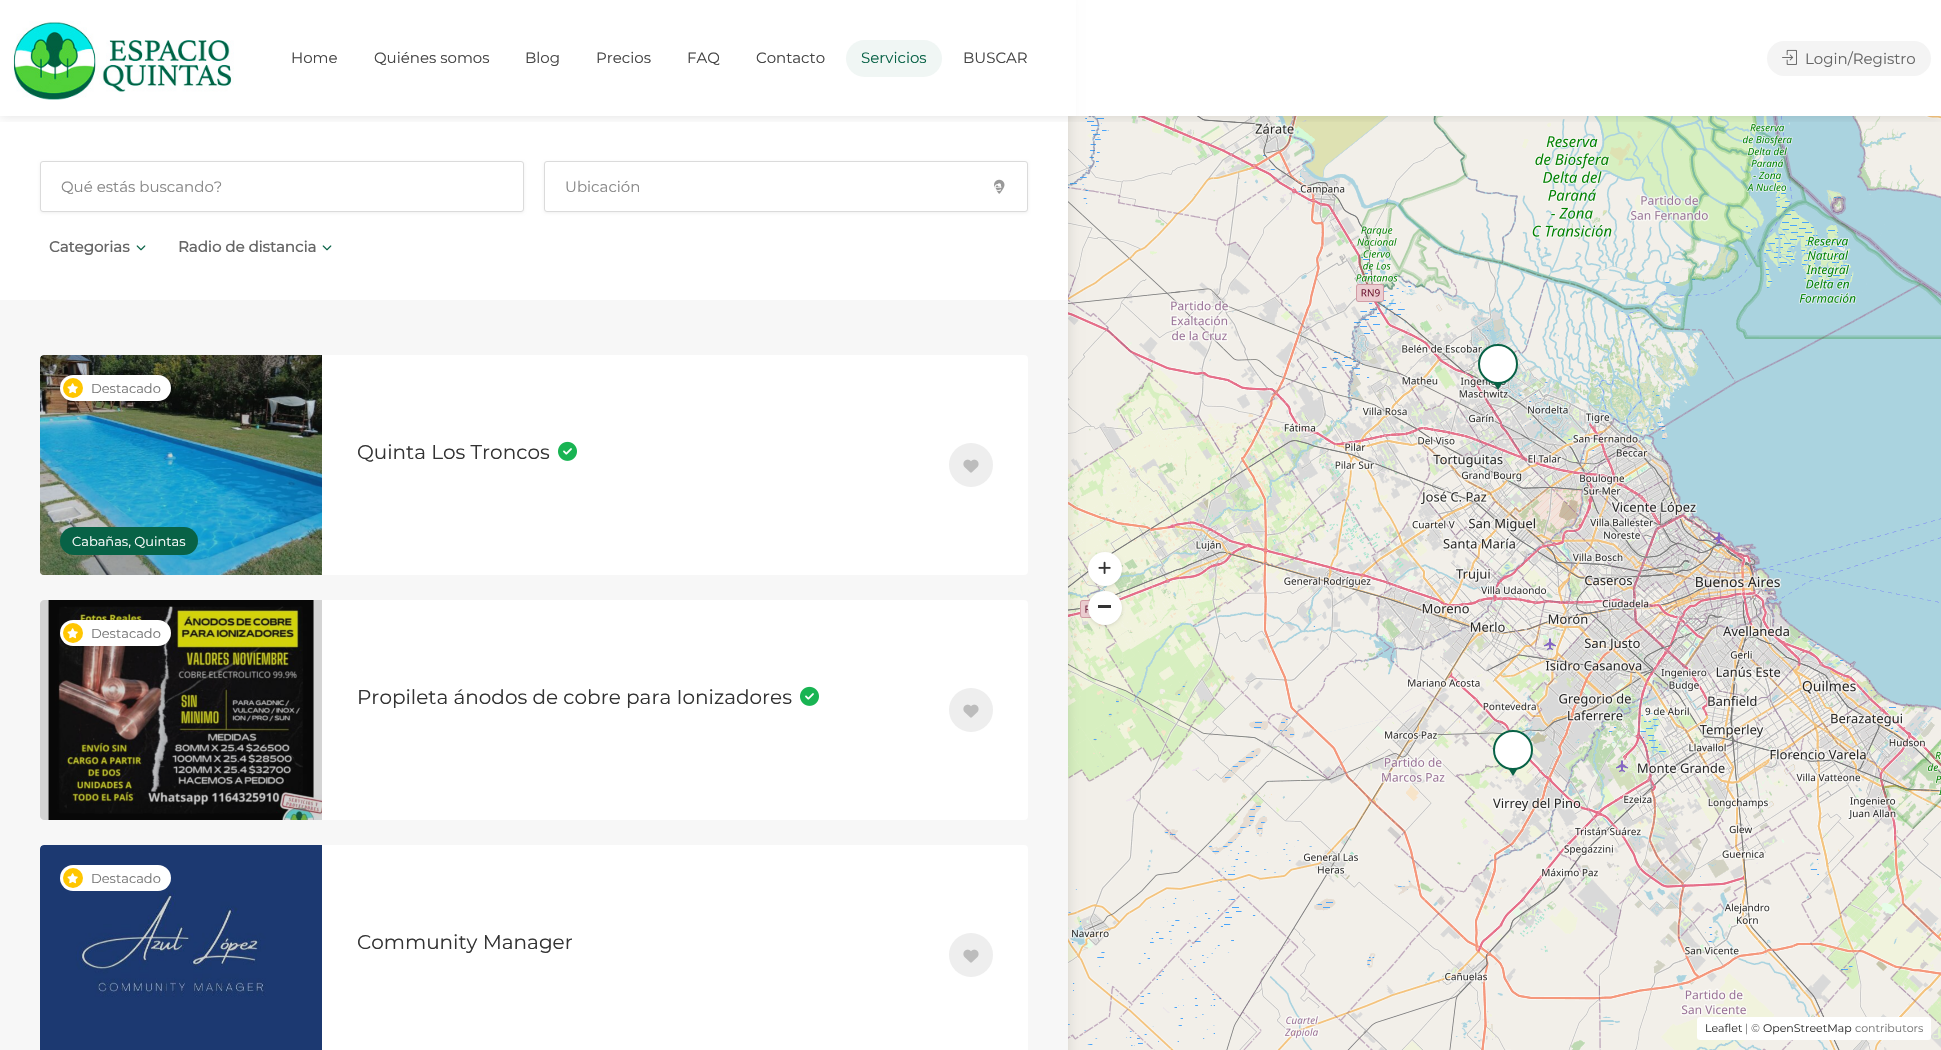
#include "include/core/SkBlurTypes.h"
#include "include/core/SkCanvas.h"
#include "include/core/SkData.h"
#include "include/core/SkFont.h"
#include "include/core/SkFontMgr.h"
#include "include/core/SkImage.h"
#include "include/core/SkMaskFilter.h"
#include "include/core/SkPaint.h"
#include "include/core/SkPathBuilder.h"
#include "include/core/SkTextBlob.h"
#include "include/effects/SkDashPathEffect.h"
#include "include/effects/SkGradientShader.h"
#include "include/utils/SkParsePath.h"

extern sk_sp<SkFontMgr> fontMgr;

void draw(SkCanvas* canvas) {
  SkPaint p;
  p.setAntiAlias(true);
  canvas->clear(SK_ColorWHITE);
  canvas->drawImageRect(SkImages::DeferredFromEncodedData(SkData::MakeFromFileName("images/11.png")), SkRect::MakeLTRB(1068, 116, 1247, 315), SkSamplingOptions());
  canvas->drawImageRect(SkImages::DeferredFromEncodedData(SkData::MakeFromFileName("images/15.png")), SkRect::MakeLTRB(1068, 315, 1247, 571), SkSamplingOptions());
  canvas->drawImageRect(SkImages::DeferredFromEncodedData(SkData::MakeFromFileName("images/19.png")), SkRect::MakeLTRB(1068, 571, 1247, 827), SkSamplingOptions());
  canvas->drawImageRect(SkImages::DeferredFromEncodedData(SkData::MakeFromFileName("images/23.png")), SkRect::MakeLTRB(1068, 827, 1247, 1050), SkSamplingOptions());
  p.setColor(SkColorSetARGB(31, 0, 0, 0));
  p.setMaskFilter(SkMaskFilter::MakeBlur(kNormal_SkBlurStyle, 6));
  canvas->drawRect(SkRect::MakeLTRB(0, 0, 1068, 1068), p);
  p.setMaskFilter(nullptr);
  p.setColor(SK_ColorWHITE);
  canvas->drawRect(SkRect::MakeLTRB(0, 0, 1076, 116), p);
  canvas->drawRect(SkRect::MakeLTRB(0, 116, 1068, 300), p);
  canvas->drawImageRect(SkImages::DeferredFromEncodedData(SkData::MakeFromFileName("images/12.png")), SkRect::MakeLTRB(1247, 116, 1503, 315), SkSamplingOptions());
  canvas->drawImageRect(SkImages::DeferredFromEncodedData(SkData::MakeFromFileName("images/13.png")), SkRect::MakeLTRB(1503, 116, 1759, 315), SkSamplingOptions());
  canvas->drawImageRect(SkImages::DeferredFromEncodedData(SkData::MakeFromFileName("images/14.png")), SkRect::MakeLTRB(1759, 116, 1941, 315), SkSamplingOptions());
  canvas->save();
  canvas->clipRect(SkRect::MakeLTRB(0, 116, 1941, 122));
  p.setColor(SkColorSetARGB(31, 0, 0, 0));
  p.setMaskFilter(SkMaskFilter::MakeBlur(kNormal_SkBlurStyle, 6));
  canvas->drawRect(SkRect::MakeLTRB(0, 0, 1941, 116), p);
  p.setMaskFilter(nullptr);
  canvas->restore();
  canvas->drawImageRect(SkImages::DeferredFromEncodedData(SkData::MakeFromFileName("images/1.png")), SkRect::MakeLTRB(10, 21, 234, 100), SkSamplingOptions());
  p.setColor(SkColorSetRGB(240, 246, 244));
  canvas->drawRoundRect(SkRect::MakeLTRB(846, 40, 942, 77), 18.5f, 18.5f, p);
  p.setColor(SkColorSetRGB(244, 244, 244));
  canvas->drawRoundRect(SkRect::MakeLTRB(1767, 41, 1931, 76), 17.5f, 17.5f, p);
  canvas->drawImageRect(SkImages::DeferredFromEncodedData(SkData::MakeFromFileName("images/2.png")), SkRect::MakeLTRB(1782, 49, 1797, 65), SkSamplingOptions());
  p.setColor(SkColorSetRGB(247, 247, 247));
  canvas->drawRect(SkRect::MakeLTRB(0, 300, 1068, 1050), p);
  p.setColor(SkColorSetARGB(15, 0, 0, 0));
  p.setMaskFilter(SkMaskFilter::MakeBlur(kNormal_SkBlurStyle, 1.5f));
  canvas->drawRoundRect(SkRect::MakeLTRB(40, 162, 524, 213), 3, 3, p);
  p.setMaskFilter(nullptr);
  p.setColor(SK_ColorWHITE);
  canvas->drawRoundRect(SkRect::MakeLTRB(40.5f, 161.5f, 523.5f, 211.5f), 2.5f, 2.5f, p);
  p.setStyle(SkPaint::kStroke_Style);
  p.setStrokeWidth(1);
  p.setColor(SkColorSetRGB(219, 219, 219));
  canvas->drawRoundRect(SkRect::MakeLTRB(40.5f, 161.5f, 523.5f, 211.5f), 2.5f, 2.5f, p);
  p.setStyle(SkPaint::kFill_Style);
  p.setColor(SkColorSetARGB(15, 0, 0, 0));
  p.setMaskFilter(SkMaskFilter::MakeBlur(kNormal_SkBlurStyle, 1.5f));
  canvas->drawRoundRect(SkRect::MakeLTRB(544, 162, 1028, 213), 3, 3, p);
  p.setMaskFilter(nullptr);
  p.setColor(SK_ColorWHITE);
  canvas->drawRoundRect(SkRect::MakeLTRB(544.5f, 161.5f, 1027.5f, 211.5f), 2.5f, 2.5f, p);
  p.setStyle(SkPaint::kStroke_Style);
  p.setColor(SkColorSetRGB(219, 219, 219));
  canvas->drawRoundRect(SkRect::MakeLTRB(544.5f, 161.5f, 1027.5f, 211.5f), 2.5f, 2.5f, p);
  canvas->drawImageRect(SkImages::DeferredFromEncodedData(SkData::MakeFromFileName("images/3.png")), SkRect::MakeLTRB(994, 179, 1005, 194), SkSamplingOptions());
  canvas->drawImageRect(SkImages::DeferredFromEncodedData(SkData::MakeFromFileName("images/4.png")), SkRect::MakeLTRB(136, 245, 146, 251), SkSamplingOptions());
  canvas->drawImageRect(SkImages::DeferredFromEncodedData(SkData::MakeFromFileName("images/4.png")), SkRect::MakeLTRB(322, 245, 332, 251), SkSamplingOptions());
  p.setStyle(SkPaint::kFill_Style);
  p.setColor(SK_ColorWHITE);
  canvas->drawRoundRect(SkRect::MakeLTRB(40, 355, 1028, 575), 4, 4, p);
  canvas->drawImageRect(SkImages::DeferredFromEncodedData(SkData::MakeFromFileName("images/8.png")), SkRect::MakeLTRB(40, 355, 322, 575), SkSamplingOptions());
  p.setColor(SkColorSetARGB(51, 39, 39, 41));
  canvas->drawPath(SkPathBuilder().moveTo(44, 355).lineTo(322, 355).lineTo(322, 575).lineTo(44, 575).cubicTo(42, 575, 40, 573, 40, 571).lineTo(40, 359).cubicTo(40, 357, 42, 355, 44, 355).close().detach(), p);
  p.setColor(SkColorSetARGB(20, 0, 0, 0));
  p.setMaskFilter(SkMaskFilter::MakeBlur(kNormal_SkBlurStyle, 2));
  canvas->drawRoundRect(SkRect::MakeLTRB(60, 376, 171, 402), 13, 13, p);
  p.setMaskFilter(nullptr);
  p.setColor(SK_ColorWHITE);
  canvas->drawRoundRect(SkRect::MakeLTRB(60, 375, 171, 401), 13, 13, p);
  p.setColor(SkColorSetRGB(255, 198, 1));
  canvas->drawCircle(73, 388, 10, p);
  canvas->drawImageRect(SkImages::DeferredFromEncodedData(SkData::MakeFromFileName("images/5.png")), SkRect::MakeLTRB(67, 383, 78, 394), SkSamplingOptions());
  canvas->drawImageRect(SkImages::DeferredFromEncodedData(SkData::MakeFromFileName("images/6.png")), SkRect::MakeLTRB(558, 441, 577, 461), SkSamplingOptions());
  p.setColor(SkColorSetRGB(238, 238, 238));
  canvas->drawCircle(971, 465, 22, p);
  canvas->drawImageRect(SkImages::DeferredFromEncodedData(SkData::MakeFromFileName("images/7.png")), SkRect::MakeLTRB(963, 459, 979, 473), SkSamplingOptions());
  p.setColor(SkColorSetRGB(8, 98, 70));
  canvas->drawRoundRect(SkRect::MakeLTRB(60, 527, 198, 555), 14, 14, p);
  p.setColor(SK_ColorWHITE);
  canvas->drawRoundRect(SkRect::MakeLTRB(40, 600, 1028, 820), 4, 4, p);
  canvas->drawImageRect(SkImages::DeferredFromEncodedData(SkData::MakeFromFileName("images/9.png")), SkRect::MakeLTRB(48, 600, 322, 820), SkSamplingOptions());
  p.setColor(SkColorSetARGB(51, 39, 39, 41));
  canvas->drawPath(SkPathBuilder().moveTo(44, 600).lineTo(322, 600).lineTo(322, 820).lineTo(44, 820).cubicTo(42, 820, 40, 818, 40, 816).lineTo(40, 604).cubicTo(40, 602, 42, 600, 44, 600).close().detach(), p);
  p.setColor(SkColorSetARGB(20, 0, 0, 0));
  p.setMaskFilter(SkMaskFilter::MakeBlur(kNormal_SkBlurStyle, 2));
  canvas->drawRoundRect(SkRect::MakeLTRB(60, 621, 171, 647), 13, 13, p);
  p.setMaskFilter(nullptr);
  p.setColor(SK_ColorWHITE);
  canvas->drawRoundRect(SkRect::MakeLTRB(60, 620, 171, 646), 13, 13, p);
  p.setColor(SkColorSetRGB(255, 198, 1));
  canvas->drawCircle(73, 633, 10, p);
  canvas->drawImageRect(SkImages::DeferredFromEncodedData(SkData::MakeFromFileName("images/5.png")), SkRect::MakeLTRB(67, 628, 78, 639), SkSamplingOptions());
  canvas->drawImageRect(SkImages::DeferredFromEncodedData(SkData::MakeFromFileName("images/6.png")), SkRect::MakeLTRB(800, 686, 819, 706), SkSamplingOptions());
  p.setColor(SkColorSetRGB(238, 238, 238));
  canvas->drawCircle(971, 710, 22, p);
  canvas->drawImageRect(SkImages::DeferredFromEncodedData(SkData::MakeFromFileName("images/7.png")), SkRect::MakeLTRB(963, 704, 979, 718), SkSamplingOptions());
  p.setColor(SK_ColorWHITE);
  canvas->drawRoundRect(SkRect::MakeLTRB(40, 845, 1028, 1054), 4, 4, p);
  canvas->drawImageRect(SkImages::DeferredFromEncodedData(SkData::MakeFromFileName("images/10.png")), SkRect::MakeLTRB(40, 845, 322, 1050), SkSamplingOptions());
  p.setColor(SkColorSetARGB(51, 39, 39, 41));
  canvas->drawPath(SkPathBuilder().moveTo(44, 845).lineTo(322, 845).lineTo(322, 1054).lineTo(44, 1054).cubicTo(42, 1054, 40, 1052, 40, 1050).lineTo(40, 849).cubicTo(40, 847, 42, 845, 44, 845).close().detach(), p);
  p.setColor(SK_ColorWHITE);
  canvas->drawRoundRect(SkRect::MakeLTRB(60, 865, 171, 891), 13, 13, p);
  p.setColor(SkColorSetRGB(255, 198, 1));
  canvas->drawCircle(73, 878, 10, p);
  canvas->drawImageRect(SkImages::DeferredFromEncodedData(SkData::MakeFromFileName("images/5.png")), SkRect::MakeLTRB(67, 873, 78, 884), SkSamplingOptions());
  p.setColor(SkColorSetRGB(238, 238, 238));
  canvas->drawCircle(971, 955, 22, p);
  canvas->drawImageRect(SkImages::DeferredFromEncodedData(SkData::MakeFromFileName("images/7.png")), SkRect::MakeLTRB(963, 949, 979, 963), SkSamplingOptions());
  canvas->drawImageRect(SkImages::DeferredFromEncodedData(SkData::MakeFromFileName("images/16.png")), SkRect::MakeLTRB(1247, 315, 1503, 571), SkSamplingOptions());
  canvas->drawImageRect(SkImages::DeferredFromEncodedData(SkData::MakeFromFileName("images/17.png")), SkRect::MakeLTRB(1503, 315, 1759, 571), SkSamplingOptions());
  canvas->drawImageRect(SkImages::DeferredFromEncodedData(SkData::MakeFromFileName("images/18.png")), SkRect::MakeLTRB(1759, 315, 1941, 571), SkSamplingOptions());
  canvas->drawImageRect(SkImages::DeferredFromEncodedData(SkData::MakeFromFileName("images/20.png")), SkRect::MakeLTRB(1247, 571, 1503, 827), SkSamplingOptions());
  canvas->drawImageRect(SkImages::DeferredFromEncodedData(SkData::MakeFromFileName("images/21.png")), SkRect::MakeLTRB(1503, 571, 1759, 827), SkSamplingOptions());
  canvas->drawImageRect(SkImages::DeferredFromEncodedData(SkData::MakeFromFileName("images/22.png")), SkRect::MakeLTRB(1759, 571, 1941, 827), SkSamplingOptions());
  canvas->drawImageRect(SkImages::DeferredFromEncodedData(SkData::MakeFromFileName("images/24.png")), SkRect::MakeLTRB(1247, 827, 1503, 1050), SkSamplingOptions());
  canvas->drawImageRect(SkImages::DeferredFromEncodedData(SkData::MakeFromFileName("images/25.png")), SkRect::MakeLTRB(1503, 827, 1759, 1050), SkSamplingOptions());
  canvas->drawImageRect(SkImages::DeferredFromEncodedData(SkData::MakeFromFileName("images/26.png")), SkRect::MakeLTRB(1759, 827, 1941, 1050), SkSamplingOptions());
  p.setColor(SkColorSetRGB(8, 98, 70));
  canvas->drawPath(SkPathBuilder().moveTo(1493, 382).lineTo(1503, 382).lineTo(1498, 390).close().detach(), p);
  p.setColor(SK_ColorWHITE);
  canvas->drawCircle(1498, 364, 19, p);
  p.setStyle(SkPaint::kStroke_Style);
  p.setStrokeWidth(2);
  p.setColor(SkColorSetRGB(8, 98, 70));
  canvas->drawCircle(1498, 364, 19, p);
  p.setStyle(SkPaint::kFill_Style);
  canvas->drawPath(SkPathBuilder().moveTo(1508, 768).lineTo(1518, 768).lineTo(1513, 776).close().detach(), p);
  p.setColor(SK_ColorWHITE);
  canvas->drawCircle(1513, 750, 19, p);
  p.setStyle(SkPaint::kStroke_Style);
  p.setColor(SkColorSetRGB(8, 98, 70));
  canvas->drawCircle(1513, 750, 19, p);
  p.setStyle(SkPaint::kFill_Style);
  p.setColor(SkColorSetARGB(51, 0, 0, 0));
  p.setMaskFilter(SkMaskFilter::MakeBlur(kNormal_SkBlurStyle, 2));
  canvas->drawRoundRect(SkRect::MakeLTRB(1089, 554, 1121, 586), 16, 16, p);
  p.setMaskFilter(nullptr);
  p.setColor(SK_ColorWHITE);
  canvas->drawCircle(1105, 569, 17, p);
  canvas->drawImageRect(SkImages::DeferredFromEncodedData(SkData::MakeFromFileName("images/27.png")), SkRect::MakeLTRB(1098, 561, 1111, 574), SkSamplingOptions());
  p.setColor(SkColorSetARGB(51, 0, 0, 0));
  p.setMaskFilter(SkMaskFilter::MakeBlur(kNormal_SkBlurStyle, 2));
  canvas->drawRoundRect(SkRect::MakeLTRB(1089, 593, 1121, 625), 16, 16, p);
  p.setMaskFilter(nullptr);
  p.setColor(SK_ColorWHITE);
  canvas->drawCircle(1105, 608, 17, p);
  p.setColor(SkColorSetRGB(51, 51, 51));
  canvas->drawRect(SkRect::MakeLTRB(1098, 605, 1111, 608), p);
  p.setColor(SK_ColorWHITE);
  canvas->drawRoundRect(SkRect::MakeLTRB(1697, 1017, 1931, 1040), 3, 3, p);
  SkFont font1(fontMgr->matchFamilyStyle("Montserrat", SkFontStyle::Normal()), 15);
  font1.setSubpixel(true);
  p.setColor(SkColorSetRGB(68, 68, 68));
  canvas->drawString("Home", 291, 63, font1, p);
  canvas->drawString("Quiénes somos", 374, 63, font1, p);
  canvas->drawString("Blog", 525, 63, font1, p);
  canvas->drawString("Precios", 596, 63, font1, p);
  canvas->drawString("FAQ", 687, 63, font1, p);
  canvas->drawString("Contacto", 756, 63, font1, p);
  p.setColor(SkColorSetRGB(8, 98, 70));
  canvas->drawString("Servicios", 861, 63, font1, p);
  p.setColor(SkColorSetRGB(68, 68, 68));
  canvas->drawString("BUSCAR", 963, 63, font1, p);
  p.setColor(SkColorSetRGB(102, 102, 102));
  canvas->drawString("Login/Registro", 1805, 64, font1, p);
  p.setColor(SkColorSetRGB(136, 136, 136));
  canvas->drawString("Qué estás buscando?", 61, 192, font1, p);
  canvas->drawString("Ubicación", 565, 192, font1, p);
  SkFont font2(fontMgr->matchFamilyStyle("Montserrat", SkFontStyle::Normal()), 13);
  font2.setSubpixel(true);
  p.setColor(SK_ColorWHITE);
  canvas->drawString("e", 994, 191, font2, p);
  SkFont font3(fontMgr->matchFamilyStyle("Montserrat", SkFontStyle::Bold()), 15);
  font3.setSubpixel(true);
  p.setColor(SkColorSetRGB(102, 102, 102));
  canvas->drawString("Categorias", 49, 252, font3, p);
  canvas->drawString("Radio de distancia", 178, 252, font3, p);
  p.setColor(SkColorSetRGB(119, 119, 119));
  canvas->drawString("Destacado", 91, 393, font2, p);
  SkFont font4(fontMgr->matchFamilyStyle("Montserrat", SkFontStyle::Normal()), 20);
  font4.setSubpixel(true);
  p.setColor(SkColorSetRGB(51, 51, 51));
  canvas->drawString("Quinta Los Troncos", 357, 459, font4, p);
  p.setColor(SK_ColorWHITE);
  canvas->drawString("Cabañas, Quintas", 72, 546, font2, p);
  p.setColor(SkColorSetRGB(119, 119, 119));
  canvas->drawString("Destacado", 91, 638, font2, p);
  p.setColor(SkColorSetRGB(51, 51, 51));
  canvas->drawString("Propileta ánodos de cobre para Ionizadores", 357, 704, font4, p);
  p.setColor(SkColorSetRGB(119, 119, 119));
  canvas->drawString("Destacado", 91, 883, font2, p);
  p.setColor(SkColorSetRGB(51, 51, 51));
  canvas->drawString("Community Manager", 357, 949, font4, p);
  SkFont font5(fontMgr->matchFamilyStyle("Montserrat", SkFontStyle::Normal()), 11);
  font5.setSubpixel(true);
  canvas->drawString("Leaflet", 1705, 1032, font5, p);
  p.setColor(SkColorSetRGB(119, 119, 119));
  canvas->drawString("| ©", 1745, 1032, font5, p);
  p.setColor(SkColorSetRGB(51, 51, 51));
  canvas->drawString("OpenStreetMap", 1763, 1032, font5, p);
  p.setColor(SkColorSetRGB(119, 119, 119));
  canvas->drawString("contributors", 1855, 1032, font5, p);
}
